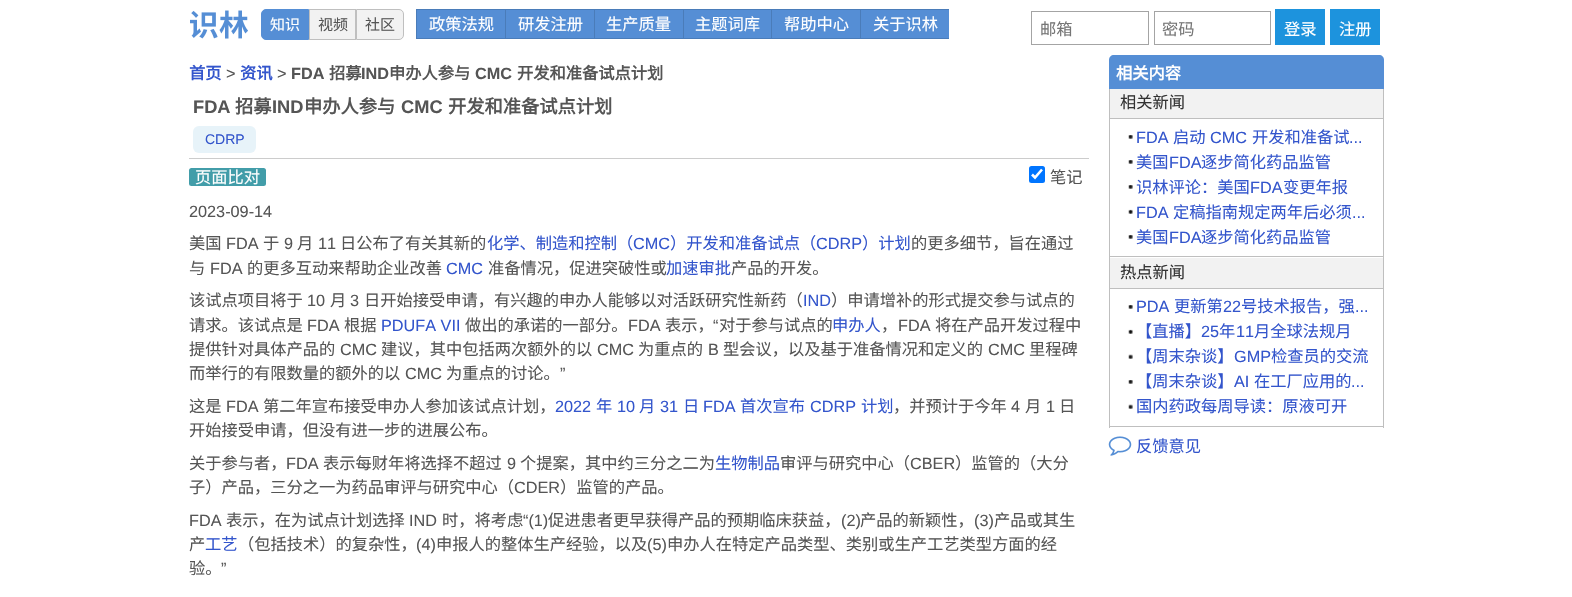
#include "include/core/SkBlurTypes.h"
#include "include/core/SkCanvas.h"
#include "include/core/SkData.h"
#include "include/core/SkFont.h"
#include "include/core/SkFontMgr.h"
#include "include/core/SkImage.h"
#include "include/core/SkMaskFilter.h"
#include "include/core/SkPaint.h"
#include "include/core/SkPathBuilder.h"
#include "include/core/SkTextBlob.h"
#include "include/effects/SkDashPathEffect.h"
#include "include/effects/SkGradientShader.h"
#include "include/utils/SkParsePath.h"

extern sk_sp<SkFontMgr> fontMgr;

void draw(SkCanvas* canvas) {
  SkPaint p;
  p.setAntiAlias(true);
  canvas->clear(SK_ColorWHITE);
  canvas->drawImageRect(SkImages::DeferredFromEncodedData(SkData::MakeFromFileName("images/1.png")), SkRect::MakeLTRB(190, 10, 248, 39), SkSamplingOptions());
  p.setColor(SkColorSetRGB(85, 142, 213));
  canvas->drawPath(SkPathBuilder().moveTo(266, 9.5f).lineTo(308.5f, 9.5f).lineTo(308.5f, 39.5f).lineTo(266, 39.5f).cubicTo(263.5f, 39.5f, 261.5f, 37.5f, 261.5f, 35).lineTo(261.5f, 14).cubicTo(261.5f, 11.5f, 263.5f, 9.5f, 266, 9.5f).close().detach(), p);
  p.setStyle(SkPaint::kStroke_Style);
  p.setStrokeWidth(1);
  canvas->drawPath(SkPathBuilder().moveTo(266, 9.5f).lineTo(308.5f, 9.5f).lineTo(308.5f, 39.5f).lineTo(266, 39.5f).cubicTo(263.5f, 39.5f, 261.5f, 37.5f, 261.5f, 35).lineTo(261.5f, 14).cubicTo(261.5f, 11.5f, 263.5f, 9.5f, 266, 9.5f).close().detach(), p);
  p.setStyle(SkPaint::kFill_Style);
  p.setColor(SkColorSetRGB(242, 242, 242));
  canvas->drawRect(SkRect::MakeLTRB(309.5f, 9.5f, 355.5f, 39.5f), p);
  p.setStyle(SkPaint::kStroke_Style);
  p.setColor(SkColorSetRGB(191, 191, 191));
  canvas->drawRect(SkRect::MakeLTRB(309.5f, 9.5f, 355.5f, 39.5f), p);
  p.setStyle(SkPaint::kFill_Style);
  p.setColor(SkColorSetRGB(242, 242, 242));
  canvas->drawPath(SkPathBuilder().moveTo(356.5f, 9.5f).lineTo(399, 9.5f).cubicTo(401.5f, 9.5f, 403.5f, 11.5f, 403.5f, 14).lineTo(403.5f, 35).cubicTo(403.5f, 37.5f, 401.5f, 39.5f, 399, 39.5f).lineTo(356.5f, 39.5f).close().detach(), p);
  p.setStyle(SkPaint::kStroke_Style);
  p.setColor(SkColorSetRGB(191, 191, 191));
  canvas->drawPath(SkPathBuilder().moveTo(356.5f, 9.5f).lineTo(399, 9.5f).cubicTo(401.5f, 9.5f, 403.5f, 11.5f, 403.5f, 14).lineTo(403.5f, 35).cubicTo(403.5f, 37.5f, 401.5f, 39.5f, 399, 39.5f).lineTo(356.5f, 39.5f).close().detach(), p);
  p.setStyle(SkPaint::kFill_Style);
  p.setColor(SkColorSetRGB(85, 142, 213));
  canvas->drawRect(SkRect::MakeLTRB(417, 10, 505, 38), p);
  p.setColor(SkColorSetRGB(74, 124, 185));
  canvas->drawRect(SkRect::MakeLTRB(416, 9, 949, 10), p);
  canvas->drawRect(SkRect::MakeLTRB(416, 38, 949, 39), p);
  canvas->drawRect(SkRect::MakeLTRB(416, 9, 417, 39), p);
  p.setColor(SkColorSetRGB(85, 142, 213));
  canvas->drawRect(SkRect::MakeLTRB(506, 10, 594, 38), p);
  p.setColor(SkColorSetRGB(74, 124, 185));
  canvas->drawRect(SkRect::MakeLTRB(505, 9, 506, 39), p);
  p.setColor(SkColorSetRGB(85, 142, 213));
  canvas->drawRect(SkRect::MakeLTRB(595, 10, 683, 38), p);
  p.setColor(SkColorSetRGB(74, 124, 185));
  canvas->drawRect(SkRect::MakeLTRB(594, 9, 595, 39), p);
  p.setColor(SkColorSetRGB(85, 142, 213));
  canvas->drawRect(SkRect::MakeLTRB(684, 10, 771, 38), p);
  p.setColor(SkColorSetRGB(74, 124, 185));
  canvas->drawRect(SkRect::MakeLTRB(683, 9, 684, 39), p);
  p.setColor(SkColorSetRGB(85, 142, 213));
  canvas->drawRect(SkRect::MakeLTRB(772, 10, 860, 38), p);
  p.setColor(SkColorSetRGB(74, 124, 185));
  canvas->drawRect(SkRect::MakeLTRB(771, 9, 772, 39), p);
  p.setColor(SkColorSetRGB(85, 142, 213));
  canvas->drawRect(SkRect::MakeLTRB(861, 10, 949, 38), p);
  p.setColor(SkColorSetRGB(74, 124, 185));
  canvas->drawRect(SkRect::MakeLTRB(860, 9, 861, 39), p);
  p.setStyle(SkPaint::kStroke_Style);
  p.setColor(SkColorSetRGB(164, 164, 164));
  canvas->drawRect(SkRect::MakeLTRB(1031.5f, 11.5f, 1148.5f, 44.5f), p);
  canvas->drawRect(SkRect::MakeLTRB(1154.5f, 11.5f, 1270.5f, 44.5f), p);
  p.setStyle(SkPaint::kFill_Style);
  p.setColor(SkColorSetRGB(29, 147, 221));
  canvas->drawRect(SkRect::MakeLTRB(1275, 9, 1325, 45), p);
  canvas->drawRect(SkRect::MakeLTRB(1330, 9, 1380, 45), p);
  p.setColor(SkColorSetRGB(204, 204, 204));
  canvas->drawRect(SkRect::MakeLTRB(189, 158, 1089, 159), p);
  p.setColor(SkColorSetRGB(231, 243, 249));
  canvas->drawRoundRect(SkRect::MakeLTRB(193, 126, 256, 153), 6, 6, p);
  p.setColor(SkColorSetRGB(66, 157, 169));
  canvas->drawRoundRect(SkRect::MakeLTRB(189, 168, 266, 186), 2.5f, 2.5f, p);
  p.setColor(SkColorSetRGB(0, 117, 255));
  canvas->drawRoundRect(SkRect::MakeLTRB(1029, 166, 1045, 183), 2.5f, 2.5f, p);
  p.setStyle(SkPaint::kStroke_Style);
  p.setStrokeWidth(2.6f);
  p.setColor(SK_ColorWHITE);
  canvas->drawPath(SkPathBuilder().moveTo(1032, 174.5f).lineTo(1035, 177.5f).lineTo(1042, 169.5f).detach(), p);
  p.setStyle(SkPaint::kFill_Style);
  p.setColor(SkColorSetRGB(85, 142, 213));
  canvas->drawPath(SkPathBuilder().moveTo(1114, 55).lineTo(1379, 55).cubicTo(1382, 55, 1384, 57, 1384, 60).lineTo(1384, 89).lineTo(1109, 89).lineTo(1109, 60).cubicTo(1109, 57, 1111, 55, 1114, 55).close().detach(), p);
  p.setColor(SkColorSetRGB(191, 191, 191));
  canvas->drawRect(SkRect::MakeLTRB(1383, 89, 1384, 428), p);
  canvas->drawRect(SkRect::MakeLTRB(1109, 256, 1384, 257), p);
  canvas->drawRect(SkRect::MakeLTRB(1109, 89, 1110, 258), p);
  p.setColor(SkColorSetRGB(242, 242, 242));
  canvas->drawRect(SkRect::MakeLTRB(1110, 89, 1383, 118), p);
  p.setColor(SkColorSetRGB(191, 191, 191));
  canvas->drawRect(SkRect::MakeLTRB(1110, 118, 1383, 119), p);
  canvas->drawImageRect(SkImages::DeferredFromEncodedData(SkData::MakeFromFileName("images/2.png")), SkRect::MakeLTRB(1128, 135, 1133, 139), SkSamplingOptions());
  canvas->drawImageRect(SkImages::DeferredFromEncodedData(SkData::MakeFromFileName("images/2.png")), SkRect::MakeLTRB(1128, 160, 1133, 164), SkSamplingOptions());
  canvas->drawImageRect(SkImages::DeferredFromEncodedData(SkData::MakeFromFileName("images/2.png")), SkRect::MakeLTRB(1128, 185, 1133, 189), SkSamplingOptions());
  canvas->drawImageRect(SkImages::DeferredFromEncodedData(SkData::MakeFromFileName("images/3.png")), SkRect::MakeLTRB(1128, 209, 1133, 214), SkSamplingOptions());
  canvas->drawImageRect(SkImages::DeferredFromEncodedData(SkData::MakeFromFileName("images/2.png")), SkRect::MakeLTRB(1128, 235, 1133, 239), SkSamplingOptions());
  canvas->drawRect(SkRect::MakeLTRB(1109, 426, 1384, 427), p);
  canvas->drawRect(SkRect::MakeLTRB(1109, 258, 1110, 428), p);
  p.setColor(SkColorSetRGB(242, 242, 242));
  canvas->drawRect(SkRect::MakeLTRB(1110, 258, 1383, 288), p);
  p.setColor(SkColorSetRGB(191, 191, 191));
  canvas->drawRect(SkRect::MakeLTRB(1110, 288, 1383, 289), p);
  canvas->drawImageRect(SkImages::DeferredFromEncodedData(SkData::MakeFromFileName("images/2.png")), SkRect::MakeLTRB(1128, 305, 1133, 309), SkSamplingOptions());
  canvas->drawImageRect(SkImages::DeferredFromEncodedData(SkData::MakeFromFileName("images/3.png")), SkRect::MakeLTRB(1128, 329, 1133, 334), SkSamplingOptions());
  canvas->drawImageRect(SkImages::DeferredFromEncodedData(SkData::MakeFromFileName("images/4.png")), SkRect::MakeLTRB(1128, 354, 1133, 359), SkSamplingOptions());
  canvas->drawImageRect(SkImages::DeferredFromEncodedData(SkData::MakeFromFileName("images/2.png")), SkRect::MakeLTRB(1128, 380, 1133, 384), SkSamplingOptions());
  canvas->drawImageRect(SkImages::DeferredFromEncodedData(SkData::MakeFromFileName("images/4.png")), SkRect::MakeLTRB(1128, 404, 1133, 409), SkSamplingOptions());
  canvas->drawImageRect(SkImages::DeferredFromEncodedData(SkData::MakeFromFileName("images/5.png")), SkRect::MakeLTRB(1108, 436, 1132, 456), SkSamplingOptions());
  SkFont font1(fontMgr->matchFamilyStyle("Noto Sans CJK SC", SkFontStyle::Normal()), 15);
  font1.setSubpixel(true);
  p.setColor(SK_ColorWHITE);
  canvas->drawString("知识", 270, 30, font1, p);
  p.setColor(SkColorSetRGB(85, 85, 85));
  canvas->drawString("视频", 318, 30, font1, p);
  canvas->drawString("社区", 365, 30, font1, p);
  SkFont font2(fontMgr->matchFamilyStyle("Noto Sans CJK SC", SkFontStyle::Normal()), 16.25f);
  font2.setSubpixel(true);
  p.setColor(SK_ColorWHITE);
  canvas->drawString("政策法规", 429, 30, font2, p);
  canvas->drawString("研发注册", 518, 30, font2, p);
  canvas->drawString("生产质量", 606, 30, font2, p);
  canvas->drawString("主题词库", 695, 30, font2, p);
  canvas->drawString("帮助中心", 784, 30, font2, p);
  canvas->drawString("关于识林", 873, 30, font2, p);
  p.setColor(SkColorSetRGB(117, 117, 117));
  canvas->drawString("邮箱", 1040, 35, font2, p);
  canvas->drawString("密码", 1162, 35, font2, p);
  p.setColor(SK_ColorWHITE);
  canvas->drawString("登录", 1284, 35, font2, p);
  canvas->drawString("注册", 1339, 35, font2, p);
  SkFont font3(fontMgr->matchFamilyStyle("Noto Sans CJK SC", SkFontStyle::Bold()), 16.25f);
  font3.setSubpixel(true);
  p.setColor(SkColorSetRGB(51, 85, 204));
  canvas->drawString("首页", 189, 79, font3, p);
  SkFont font4(fontMgr->matchFamilyStyle("Liberation Sans", SkFontStyle::Normal()), 16.25f);
  font4.setSubpixel(true);
  p.setColor(SkColorSetRGB(85, 85, 85));
  canvas->drawString(">", 226, 79, font4, p);
  p.setColor(SkColorSetRGB(51, 85, 204));
  canvas->drawString("资讯", 240, 79, font3, p);
  p.setColor(SkColorSetRGB(85, 85, 85));
  canvas->drawString(">", 277, 79, font4, p);
  SkFont font5(fontMgr->matchFamilyStyle("Liberation Sans", SkFontStyle::Bold()), 16.25f);
  font5.setSubpixel(true);
  canvas->drawString("FDA", 291, 79, font5, p);
  canvas->drawString("招募", 329, 79, font3, p);
  canvas->drawString("IND", 361, 79, font5, p);
  canvas->drawString("申办人参与", 389, 79, font3, p);
  canvas->drawString("CMC", 475, 79, font5, p);
  canvas->drawString("开发和准备试点计划", 517, 79, font3, p);
  SkFont font6(fontMgr->matchFamilyStyle("Liberation Sans", SkFontStyle::Bold()), 18.25f);
  font6.setSubpixel(true);
  canvas->drawString("FDA", 193, 113, font6, p);
  SkFont font7(fontMgr->matchFamilyStyle("Noto Sans CJK SC", SkFontStyle::Bold()), 18.25f);
  font7.setSubpixel(true);
  canvas->drawString("招募", 235, 113, font7, p);
  canvas->drawString("IND", 272, 113, font6, p);
  canvas->drawString("申办人参与", 304, 113, font7, p);
  canvas->drawString("CMC", 401, 113, font6, p);
  canvas->drawString("开发和准备试点计划", 448, 113, font7, p);
  SkFont font8(fontMgr->matchFamilyStyle("Liberation Sans", SkFontStyle::Normal()), 14);
  font8.setSubpixel(true);
  p.setColor(SkColorSetRGB(51, 85, 204));
  canvas->drawString("CDRP", 205, 144, font8, p);
  p.setColor(SK_ColorWHITE);
  canvas->drawString("页面比对", 195, 183, font2, p);
  p.setColor(SkColorSetRGB(85, 85, 85));
  canvas->drawString("笔记", 1050, 183, font2, p);
  canvas->drawString("2023-09-14", 189, 217, font4, p);
  canvas->drawString("美国", 189, 249, font2, p);
  canvas->drawString("FDA", 226, 249, font4, p);
  canvas->drawString("于", 263, 249, font2, p);
  canvas->drawString("9", 284, 249, font4, p);
  canvas->drawString("月", 297, 249, font2, p);
  canvas->drawString("11", 318, 249, font4, p);
  canvas->drawString("日公布了有关其新的", 340, 249, font2, p);
  p.setColor(SkColorSetRGB(51, 85, 204));
  canvas->drawString("化学、制造和控制（", 487, 249, font2, p);
  canvas->drawString("CMC", 633, 249, font4, p);
  canvas->drawString("）开发和准备试点（", 670, 249, font2, p);
  canvas->drawString("CDRP", 816, 249, font4, p);
  canvas->drawString("）计划", 862, 249, font2, p);
  p.setColor(SkColorSetRGB(85, 85, 85));
  canvas->drawString("的更多细节，旨在通过", 911, 249, font2, p);
  canvas->drawString("与", 189, 274, font2, p);
  canvas->drawString("FDA", 210, 274, font4, p);
  canvas->drawString("的更多互动来帮助企业改善", 247, 274, font2, p);
  p.setColor(SkColorSetRGB(51, 85, 204));
  canvas->drawString("CMC", 446, 274, font4, p);
  p.setColor(SkColorSetRGB(85, 85, 85));
  canvas->drawString("准备情况，促进突破性或", 488, 274, font2, p);
  p.setColor(SkColorSetRGB(51, 85, 204));
  canvas->drawString("加速审批", 666, 274, font2, p);
  p.setColor(SkColorSetRGB(85, 85, 85));
  canvas->drawString("产品的开发。", 731, 274, font2, p);
  canvas->drawString("该试点项目将于", 189, 306, font2, p);
  canvas->drawString("10", 307, 306, font4, p);
  canvas->drawString("月", 330, 306, font2, p);
  canvas->drawString("3", 350, 306, font4, p);
  canvas->drawString("日开始接受申请，有兴趣的申办人能够以对活跃研究性新药（", 364, 306, font2, p);
  p.setColor(SkColorSetRGB(51, 85, 204));
  canvas->drawString("IND", 803, 306, font4, p);
  p.setColor(SkColorSetRGB(85, 85, 85));
  canvas->drawString("）申请增补的形式提交参与试点的", 831, 306, font2, p);
  canvas->drawString("请求。该试点是", 189, 331, font2, p);
  canvas->drawString("FDA", 307, 331, font4, p);
  canvas->drawString("根据", 344, 331, font2, p);
  p.setColor(SkColorSetRGB(51, 85, 204));
  canvas->drawString("PDUFA VII", 381, 331, font4, p);
  p.setColor(SkColorSetRGB(85, 85, 85));
  canvas->drawString("做出的承诺的一部分。", 465, 331, font2, p);
  canvas->drawString("FDA", 628, 331, font4, p);
  canvas->drawString("表示，", 665, 331, font2, p);
  canvas->drawString("“", 713, 331, font4, p);
  canvas->drawString("对于参与试点的", 719, 331, font2, p);
  p.setColor(SkColorSetRGB(51, 85, 204));
  canvas->drawString("申办人", 832, 331, font2, p);
  p.setColor(SkColorSetRGB(85, 85, 85));
  canvas->drawString("，", 881, 331, font2, p);
  canvas->drawString("FDA", 898, 331, font4, p);
  canvas->drawString("将在产品开发过程中", 935, 331, font2, p);
  canvas->drawString("提供针对具体产品的", 189, 355, font2, p);
  canvas->drawString("CMC", 340, 355, font4, p);
  canvas->drawString("建议，其中包括两次额外的以", 381, 355, font2, p);
  canvas->drawString("CMC", 597, 355, font4, p);
  canvas->drawString("为重点的", 638, 355, font2, p);
  canvas->drawString("B", 708, 355, font4, p);
  canvas->drawString("型会议，以及基于准备情况和定义的", 723, 355, font2, p);
  canvas->drawString("CMC", 988, 355, font4, p);
  canvas->drawString("里程碑", 1029, 355, font2, p);
  canvas->drawString("而举行的有限数量的额外的以", 189, 379, font2, p);
  canvas->drawString("CMC", 405, 379, font4, p);
  canvas->drawString("为重点的讨论。", 446, 379, font2, p);
  canvas->drawString("”", 560, 379, font4, p);
  canvas->drawString("这是", 189, 412, font2, p);
  canvas->drawString("FDA", 226, 412, font4, p);
  canvas->drawString("第二年宣布接受申办人参加该试点计划，", 263, 412, font2, p);
  p.setColor(SkColorSetRGB(51, 85, 204));
  canvas->drawString("2022", 555, 412, font4, p);
  canvas->drawString("年", 596, 412, font2, p);
  canvas->drawString("10", 617, 412, font4, p);
  canvas->drawString("月", 639, 412, font2, p);
  canvas->drawString("31", 660, 412, font4, p);
  canvas->drawString("日", 683, 412, font2, p);
  canvas->drawString("FDA", 703, 412, font4, p);
  canvas->drawString("首次宣布", 740, 412, font2, p);
  canvas->drawString("CDRP", 810, 412, font4, p);
  canvas->drawString("计划", 861, 412, font2, p);
  p.setColor(SkColorSetRGB(85, 85, 85));
  canvas->drawString("，并预计于今年", 893, 412, font2, p);
  canvas->drawString("4", 1011, 412, font4, p);
  canvas->drawString("月", 1025, 412, font2, p);
  canvas->drawString("1", 1046, 412, font4, p);
  canvas->drawString("日", 1059, 412, font2, p);
  canvas->drawString("开始接受申请，但没有进一步的进展公布。", 189, 436, font2, p);
  canvas->drawString("关于参与者，", 189, 469, font2, p);
  canvas->drawString("FDA", 286, 469, font4, p);
  canvas->drawString("表示每财年将选择不超过", 323, 469, font2, p);
  canvas->drawString("9", 507, 469, font4, p);
  canvas->drawString("个提案，其中约三分之二为", 520, 469, font2, p);
  p.setColor(SkColorSetRGB(51, 85, 204));
  canvas->drawString("生物制品", 715, 469, font2, p);
  p.setColor(SkColorSetRGB(85, 85, 85));
  canvas->drawString("审评与研究中心（", 780, 469, font2, p);
  canvas->drawString("CBER", 910, 469, font4, p);
  canvas->drawString("）监管的（大分", 955, 469, font2, p);
  canvas->drawString("子）产品，三分之一为药品审评与研究中心（", 189, 493, font2, p);
  canvas->drawString("CDER", 514, 493, font4, p);
  canvas->drawString("）监管的产品。", 560, 493, font2, p);
  canvas->drawString("FDA", 189, 526, font4, p);
  canvas->drawString("表示，在为试点计划选择", 226, 526, font2, p);
  canvas->drawString("IND", 409, 526, font4, p);
  canvas->drawString("时，将考虑", 442, 526, font2, p);
  canvas->drawString("“(1)", 523, 526, font4, p);
  canvas->drawString("促进患者更早获得产品的预期临床获益，", 548, 526, font2, p);
  canvas->drawString("(2)", 841, 526, font4, p);
  canvas->drawString("产品的新颖性，", 860, 526, font2, p);
  canvas->drawString("(3)", 974, 526, font4, p);
  canvas->drawString("产品或其生", 994, 526, font2, p);
  canvas->drawString("产", 189, 550, font2, p);
  p.setColor(SkColorSetRGB(51, 85, 204));
  canvas->drawString("工艺", 205, 550, font2, p);
  p.setColor(SkColorSetRGB(85, 85, 85));
  canvas->drawString("（包括技术）的复杂性，", 238, 550, font2, p);
  canvas->drawString("(4)", 416, 550, font4, p);
  canvas->drawString("申报人的整体生产经验，以及", 436, 550, font2, p);
  canvas->drawString("(5)", 647, 550, font4, p);
  canvas->drawString("申办人在特定产品类型、类别或生产工艺类型方面的经", 667, 550, font2, p);
  canvas->drawString("验。", 189, 574, font2, p);
  canvas->drawString("”", 221, 574, font4, p);
  p.setColor(SK_ColorWHITE);
  canvas->drawString("相关内容", 1116, 79, font3, p);
  p.setColor(SkColorSetRGB(51, 51, 51));
  canvas->drawString("相关新闻", 1120, 108, font2, p);
  p.setColor(SkColorSetRGB(51, 85, 204));
  canvas->drawString("FDA", 1136, 143, font4, p);
  canvas->drawString("启动", 1173, 143, font2, p);
  canvas->drawString("CMC", 1210, 143, font4, p);
  canvas->drawString("开发和准备试", 1252, 143, font2, p);
  canvas->drawString("...", 1349, 143, font4, p);
  canvas->drawString("美国", 1136, 168, font2, p);
  canvas->drawString("FDA", 1169, 168, font4, p);
  canvas->drawString("逐步简化药品监管", 1201, 168, font2, p);
  canvas->drawString("识林评论：美国", 1136, 193, font2, p);
  canvas->drawString("FDA", 1250, 193, font4, p);
  canvas->drawString("变更年报", 1283, 193, font2, p);
  canvas->drawString("FDA", 1136, 218, font4, p);
  canvas->drawString("定稿指南规定两年后必须", 1173, 218, font2, p);
  canvas->drawString("...", 1352, 218, font4, p);
  canvas->drawString("美国", 1136, 243, font2, p);
  canvas->drawString("FDA", 1169, 243, font4, p);
  canvas->drawString("逐步简化药品监管", 1201, 243, font2, p);
  p.setColor(SkColorSetRGB(51, 51, 51));
  canvas->drawString("热点新闻", 1120, 278, font2, p);
  p.setColor(SkColorSetRGB(51, 85, 204));
  canvas->drawString("PDA", 1136, 312, font4, p);
  canvas->drawString("更新第", 1174, 312, font2, p);
  canvas->drawString("22", 1223, 312, font4, p);
  canvas->drawString("号技术报告，强", 1241, 312, font2, p);
  canvas->drawString("...", 1355, 312, font4, p);
  canvas->drawString("【直播】", 1136, 337, font2, p);
  canvas->drawString("25", 1201, 337, font4, p);
  canvas->drawString("年", 1219, 337, font2, p);
  canvas->drawString("11", 1236, 337, font4, p);
  canvas->drawString("月全球法规月", 1254, 337, font2, p);
  canvas->drawString("【周末杂谈】", 1136, 362, font2, p);
  canvas->drawString("GMP", 1234, 362, font4, p);
  canvas->drawString("检查员的交流", 1271, 362, font2, p);
  canvas->drawString("【周末杂谈】", 1136, 387, font2, p);
  canvas->drawString("AI", 1234, 387, font4, p);
  canvas->drawString("在工厂应用的", 1254, 387, font2, p);
  canvas->drawString("...", 1351, 387, font4, p);
  canvas->drawString("国内药政每周导读：原液可开", 1136, 412, font2, p);
  canvas->drawString("反馈意见", 1136, 452, font2, p);
}
